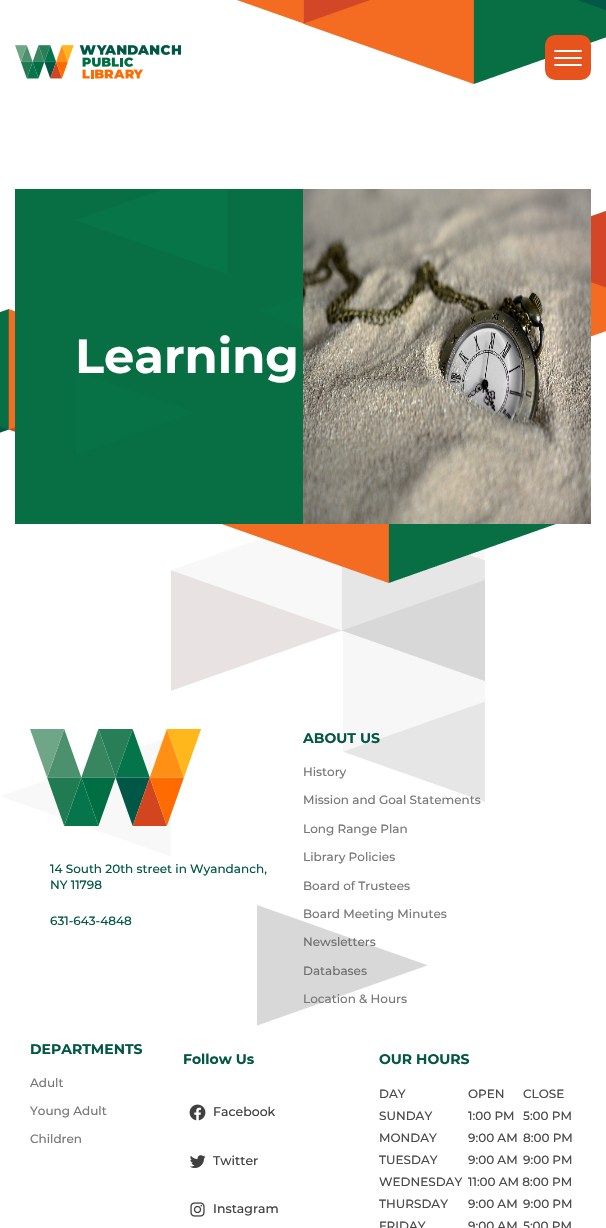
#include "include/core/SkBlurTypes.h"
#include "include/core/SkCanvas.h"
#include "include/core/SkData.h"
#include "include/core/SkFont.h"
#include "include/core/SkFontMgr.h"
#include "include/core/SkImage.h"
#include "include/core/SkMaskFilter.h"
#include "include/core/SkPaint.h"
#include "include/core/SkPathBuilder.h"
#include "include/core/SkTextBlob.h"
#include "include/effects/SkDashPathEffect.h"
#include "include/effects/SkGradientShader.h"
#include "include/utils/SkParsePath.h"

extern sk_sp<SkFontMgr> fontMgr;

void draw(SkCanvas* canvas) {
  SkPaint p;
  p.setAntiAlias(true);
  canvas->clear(SK_ColorWHITE);
  canvas->drawImageRect(SkImages::DeferredFromEncodedData(SkData::MakeFromFileName("images/2.png")), SkRect::MakeLTRB(237, 0, 606, 84), SkSamplingOptions());
  p.setColor(SkColorSetRGB(231, 83, 29));
  canvas->drawRoundRect(SkRect::MakeLTRB(545, 35, 591, 80), 10, 10, p);
  p.setColor(SK_ColorWHITE);
  canvas->drawRoundRect(SkRect::MakeLTRB(554, 50, 582, 52), 1, 1, p);
  canvas->drawRoundRect(SkRect::MakeLTRB(554, 57, 582, 59), 1, 1, p);
  canvas->drawRoundRect(SkRect::MakeLTRB(554, 64, 582, 66), 1, 1, p);
  canvas->drawImageRect(SkImages::DeferredFromEncodedData(SkData::MakeFromFileName("images/1.png")), SkRect::MakeLTRB(1, 538, 485, 1026), SkSamplingOptions());
  canvas->drawImageRect(SkImages::DeferredFromEncodedData(SkData::MakeFromFileName("images/3.png")), SkRect::MakeLTRB(15, 45, 181, 79), SkSamplingOptions());
  canvas->drawImageRect(SkImages::DeferredFromEncodedData(SkData::MakeFromFileName("images/4.png")), SkRect::MakeLTRB(591, 211, 606, 337), SkSamplingOptions());
  canvas->drawImageRect(SkImages::DeferredFromEncodedData(SkData::MakeFromFileName("images/5.png")), SkRect::MakeLTRB(0, 309, 15, 433), SkSamplingOptions());
  p.setColor(SkColorSetRGB(7, 111, 67));
  canvas->drawRect(SkRect::MakeLTRB(15, 189, 76, 524), p);
  canvas->drawImageRect(SkImages::DeferredFromEncodedData(SkData::MakeFromFileName("images/6.png")), SkRect::MakeLTRB(76, 189, 303, 524), SkSamplingOptions());
  canvas->drawImageRect(SkImages::DeferredFromEncodedData(SkData::MakeFromFileName("images/7.png")), SkRect::MakeLTRB(303, 189, 591, 524), SkSamplingOptions());
  canvas->drawImageRect(SkImages::DeferredFromEncodedData(SkData::MakeFromFileName("images/8.png")), SkRect::MakeLTRB(222, 524, 556, 583), SkSamplingOptions());
  canvas->drawImageRect(SkImages::DeferredFromEncodedData(SkData::MakeFromFileName("images/9.png")), SkRect::MakeLTRB(30, 729, 201, 826), SkSamplingOptions());
  canvas->drawImageRect(SkImages::DeferredFromEncodedData(SkData::MakeFromFileName("images/10.png")), SkRect::MakeLTRB(189, 1104, 206, 1121), SkSamplingOptions());
  canvas->drawImageRect(SkImages::DeferredFromEncodedData(SkData::MakeFromFileName("images/11.png")), SkRect::MakeLTRB(190, 1155, 206, 1168), SkSamplingOptions());
  canvas->drawImageRect(SkImages::DeferredFromEncodedData(SkData::MakeFromFileName("images/12.png")), SkRect::MakeLTRB(190, 1202, 205, 1217), SkSamplingOptions());
  SkFont font1(fontMgr->matchFamilyStyle("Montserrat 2", SkFontStyle(100, SkFontStyle::kNormal_Width, SkFontStyle::kUpright_Slant)), 48);
  font1.setSubpixel(true);
  p.setColor(SK_ColorWHITE);
  canvas->drawString("Learning", 75, 373, font1, p);
  SkFont font2(fontMgr->matchFamilyStyle("Montserrat", SkFontStyle(100, SkFontStyle::kNormal_Width, SkFontStyle::kUpright_Slant)), 12);
  font2.setSubpixel(true);
  p.setColor(SkColorSetRGB(3, 88, 69));
  canvas->drawString("14 South 20th street in Wyandanch,", 50, 873, font2, p);
  canvas->drawString("NY 11798", 50, 889, font2, p);
  canvas->drawString("631-643-4848", 50, 925, font2, p);
  SkFont font3(fontMgr->matchFamilyStyle("Montserrat 2", SkFontStyle(100, SkFontStyle::kNormal_Width, SkFontStyle::kUpright_Slant)), 14);
  font3.setSubpixel(true);
  canvas->drawString("ABOUT US", 303, 743, font3, p);
  p.setColor(SkColorSetRGB(119, 119, 119));
  canvas->drawString("History", 303, 776, font2, p);
  canvas->drawString("Mission and Goal Statements", 303, 804, font2, p);
  canvas->drawString("Long Range Plan", 303, 833, font2, p);
  canvas->drawString("Library Policies", 303, 861, font2, p);
  canvas->drawString("Board of Trustees", 303, 890, font2, p);
  canvas->drawString("Board Meeting Minutes", 303, 918, font2, p);
  p.setColor(SkColorSetRGB(111, 111, 111));
  canvas->drawString("Newsletters", 303, 946, font2, p);
  canvas->drawString("Databases", 303, 975, font2, p);
  p.setColor(SkColorSetRGB(119, 119, 119));
  canvas->drawString("Location & Hours", 303, 1003, font2, p);
  p.setColor(SkColorSetRGB(3, 88, 69));
  canvas->drawString("DEPARTMENTS", 30, 1054, font3, p);
  p.setColor(SkColorSetRGB(119, 119, 119));
  canvas->drawString("Adult", 30, 1087, font2, p);
  canvas->drawString("Young Adult", 30, 1115, font2, p);
  canvas->drawString("Children", 30, 1143, font2, p);
  p.setColor(SkColorSetRGB(3, 88, 69));
  canvas->drawString("Follow Us", 183, 1064, font3, p);
  SkFont font4(fontMgr->matchFamilyStyle("Montserrat", SkFontStyle(100, SkFontStyle::kNormal_Width, SkFontStyle::kUpright_Slant)), 12.5f);
  font4.setSubpixel(true);
  p.setColor(SkColorSetRGB(64, 64, 64));
  canvas->drawString("Facebook", 213, 1116, font4, p);
  canvas->drawString("Twitter", 213, 1165, font4, p);
  canvas->drawString("Instagram", 213, 1213, font4, p);
  p.setColor(SkColorSetRGB(3, 88, 69));
  canvas->drawString("OUR HOURS", 379, 1064, font3, p);
  p.setColor(SkColorSetRGB(74, 74, 74));
  canvas->drawString("DAY", 379, 1098, font2, p);
  canvas->drawString("OPEN", 468, 1098, font2, p);
  canvas->drawString("CLOSE", 523, 1098, font2, p);
  canvas->drawString("SUNDAY", 379, 1120, font2, p);
  canvas->drawString("1:00 PM", 468, 1120, font2, p);
  canvas->drawString("5:00 PM", 523, 1120, font2, p);
  canvas->drawString("MONDAY", 379, 1142, font2, p);
  canvas->drawString("9:00 AM", 468, 1142, font2, p);
  canvas->drawString("8:00 PM", 523, 1142, font2, p);
  canvas->drawString("TUESDAY", 379, 1164, font2, p);
  canvas->drawString("9:00 AM", 468, 1164, font2, p);
  canvas->drawString("9:00 PM", 523, 1164, font2, p);
  canvas->drawString("WEDNESDAY", 379, 1186, font2, p);
  canvas->drawString("11:00 AM 8:00 PM", 468, 1186, font2, p);
  canvas->drawString("THURSDAY", 379, 1208, font2, p);
  canvas->drawString("9:00 AM", 468, 1208, font2, p);
  canvas->drawString("9:00 PM", 523, 1208, font2, p);
  canvas->drawString("FRIDAY", 379, 1230, font2, p);
  canvas->drawString("9:00 AM", 468, 1230, font2, p);
  canvas->drawString("5:00 PM", 523, 1230, font2, p);
}
